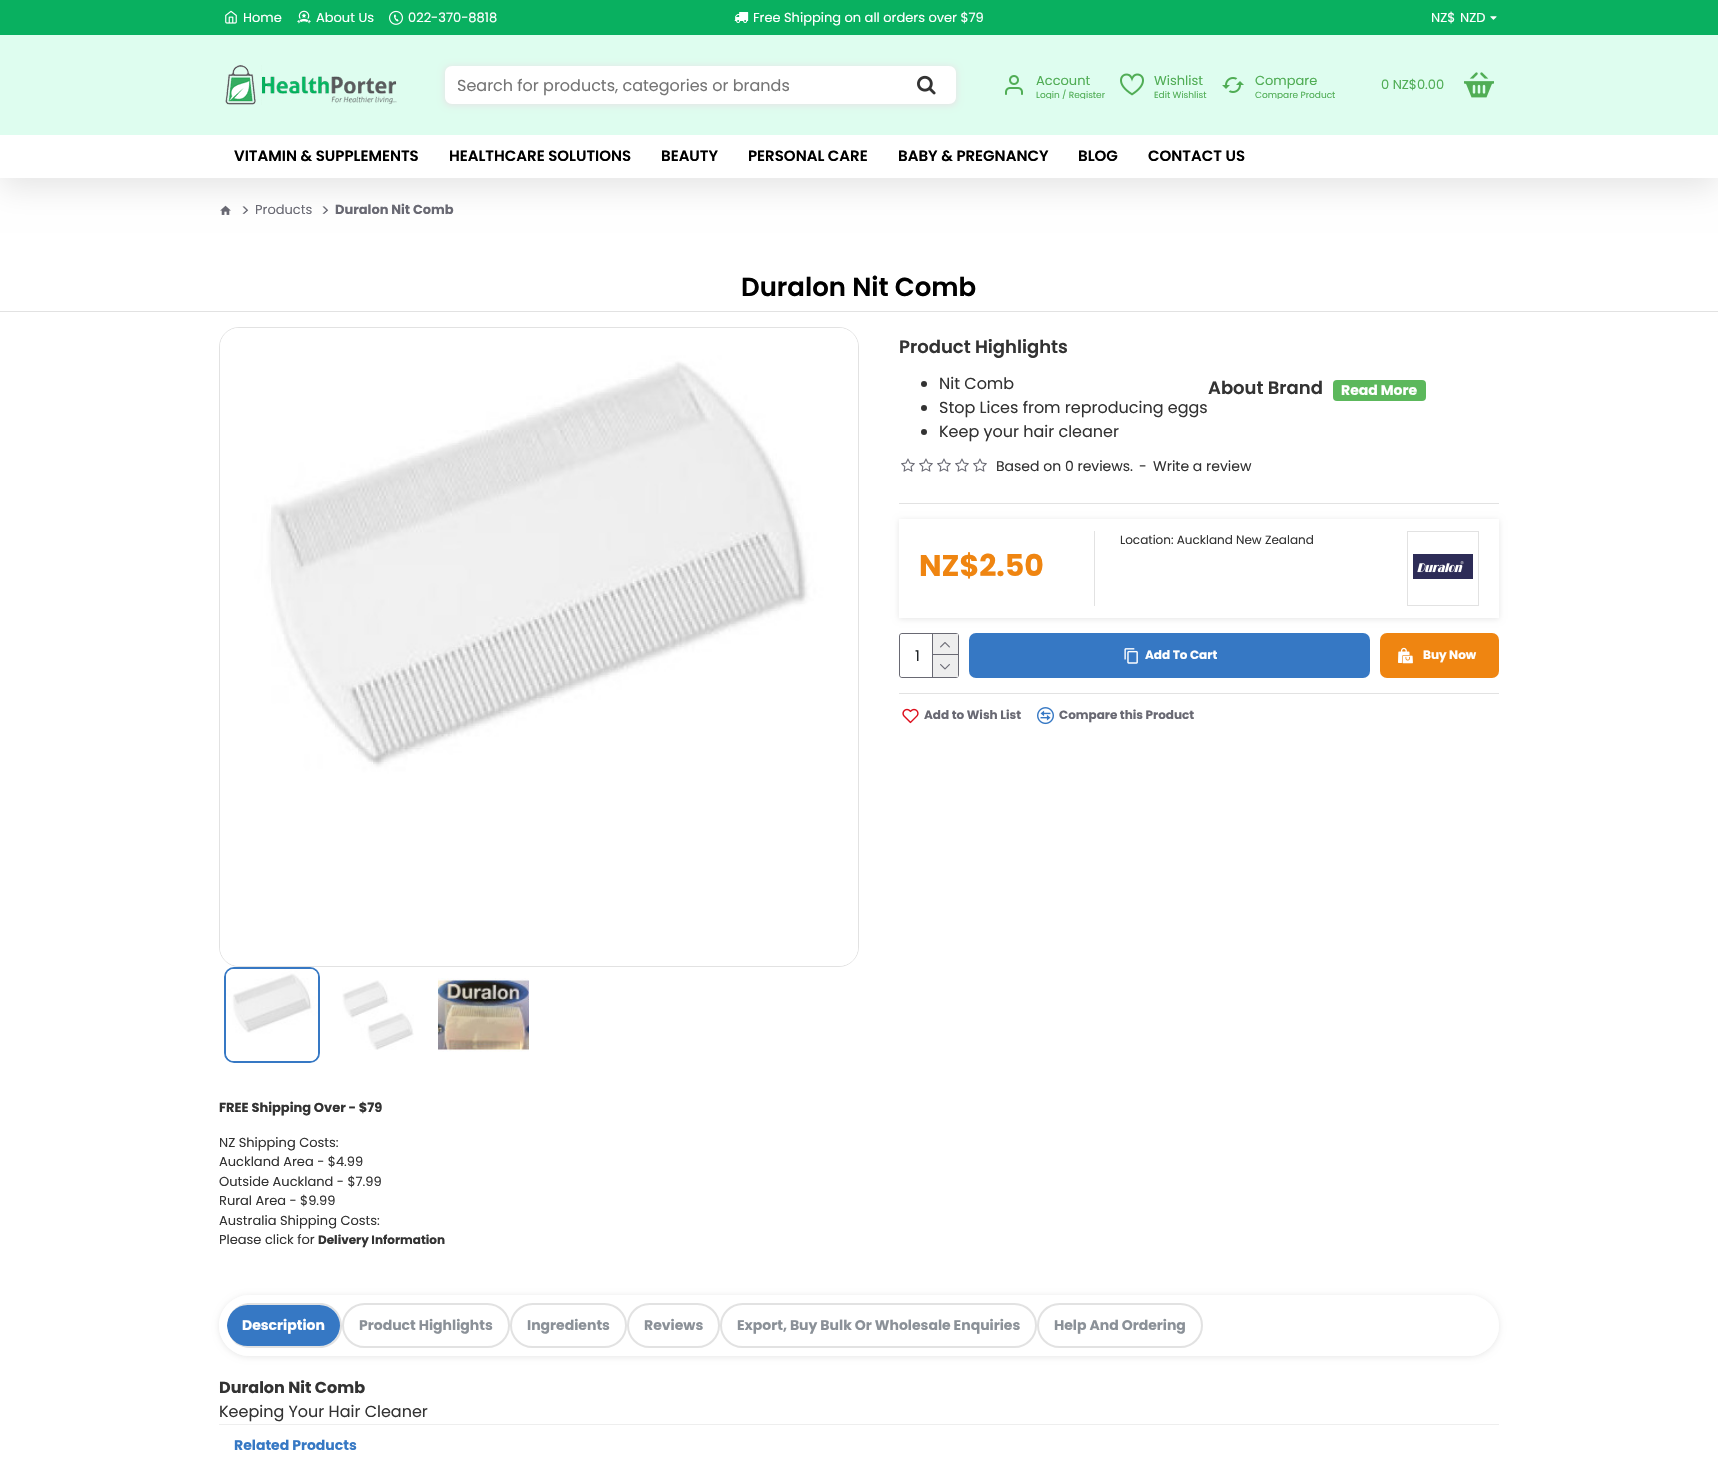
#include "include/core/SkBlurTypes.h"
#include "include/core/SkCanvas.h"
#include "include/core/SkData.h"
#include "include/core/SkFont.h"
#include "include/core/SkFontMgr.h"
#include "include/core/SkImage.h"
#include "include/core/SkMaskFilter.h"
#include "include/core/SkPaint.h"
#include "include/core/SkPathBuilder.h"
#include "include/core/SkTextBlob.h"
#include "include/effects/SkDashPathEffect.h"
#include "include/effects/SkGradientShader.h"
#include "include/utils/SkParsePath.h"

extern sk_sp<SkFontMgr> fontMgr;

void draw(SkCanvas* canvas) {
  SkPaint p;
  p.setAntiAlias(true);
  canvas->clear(SK_ColorWHITE);
  canvas->drawImageRect(SkImages::DeferredFromEncodedData(SkData::MakeFromFileName("images/12.png")), SkRect::MakeLTRB(220, 205, 231, 215), SkSamplingOptions());
  p.setColor(SkColorSetARGB(26, 0, 0, 0));
  p.setMaskFilter(SkMaskFilter::MakeBlur(kNormal_SkBlurStyle, 15));
  canvas->drawRect(SkRect::MakeLTRB(0, 10, 1718, 188), p);
  p.setMaskFilter(nullptr);
  p.setColor(SkColorSetRGB(222, 253, 239));
  canvas->drawRect(SkRect::MakeLTRB(0, 35, 1718, 135), p);
  p.setColor(SkColorSetRGB(9, 176, 96));
  canvas->drawRect(SkRect::MakeLTRB(0, 0, 1718, 35), p);
  canvas->drawImageRect(SkImages::DeferredFromEncodedData(SkData::MakeFromFileName("images/1.png")), SkRect::MakeLTRB(225, 10, 237, 24), SkSamplingOptions());
  canvas->drawImageRect(SkImages::DeferredFromEncodedData(SkData::MakeFromFileName("images/2.png")), SkRect::MakeLTRB(297, 10, 311, 24), SkSamplingOptions());
  canvas->drawImageRect(SkImages::DeferredFromEncodedData(SkData::MakeFromFileName("images/3.png")), SkRect::MakeLTRB(389, 10, 403, 25), SkSamplingOptions());
  canvas->drawImageRect(SkImages::DeferredFromEncodedData(SkData::MakeFromFileName("images/4.png")), SkRect::MakeLTRB(734, 12, 749, 23), SkSamplingOptions());
  canvas->drawImageRect(SkImages::DeferredFromEncodedData(SkData::MakeFromFileName("images/5.png")), SkRect::MakeLTRB(1490, 16, 1497, 20), SkSamplingOptions());
  canvas->drawImageRect(SkImages::DeferredFromEncodedData(SkData::MakeFromFileName("images/6.png")), SkRect::MakeLTRB(225, 65, 397, 105), SkSamplingOptions());
  p.setColor(SkColorSetRGB(230, 230, 230));
  p.setMaskFilter(SkMaskFilter::MakeBlur(kNormal_SkBlurStyle, 3));
  canvas->drawRoundRect(SkRect::MakeLTRB(444, 66, 957, 106), 7, 7, p);
  p.setMaskFilter(nullptr);
  p.setColor(SK_ColorWHITE);
  canvas->drawPath(SkPathBuilder().moveTo(452, 66).lineTo(896, 66).lineTo(896, 104).lineTo(452, 104).cubicTo(448, 104, 445, 101, 445, 97).lineTo(445, 73).cubicTo(445, 69, 448, 66, 452, 66).close().detach(), p);
  canvas->drawPath(SkPathBuilder().moveTo(896, 66).lineTo(949, 66).cubicTo(953, 66, 956, 69, 956, 73).lineTo(956, 97).cubicTo(956, 101, 953, 104, 949, 104).lineTo(896, 104).close().detach(), p);
  canvas->drawImageRect(SkImages::DeferredFromEncodedData(SkData::MakeFromFileName("images/7.png")), SkRect::MakeLTRB(917, 75, 936, 95), SkSamplingOptions());
  canvas->drawImageRect(SkImages::DeferredFromEncodedData(SkData::MakeFromFileName("images/8.png")), SkRect::MakeLTRB(1005, 75, 1023, 95), SkSamplingOptions());
  canvas->drawImageRect(SkImages::DeferredFromEncodedData(SkData::MakeFromFileName("images/9.png")), SkRect::MakeLTRB(1120, 73, 1144, 96), SkSamplingOptions());
  canvas->drawImageRect(SkImages::DeferredFromEncodedData(SkData::MakeFromFileName("images/10.png")), SkRect::MakeLTRB(1222, 77, 1244, 93), SkSamplingOptions());
  canvas->drawImageRect(SkImages::DeferredFromEncodedData(SkData::MakeFromFileName("images/11.png")), SkRect::MakeLTRB(1464, 72, 1494, 98), SkSamplingOptions());
  canvas->drawRect(SkRect::MakeLTRB(0, 135, 1718, 178), p);
  p.setColor(SkColorSetRGB(226, 226, 226));
  canvas->drawRect(SkRect::MakeLTRB(0, 311, 1718, 312), p);
  canvas->drawRect(SkRect::MakeLTRB(899, 503, 1499, 504), p);
  p.setColor(SkColorSetRGB(51, 51, 51));
  canvas->drawCircle(924, 384, 3, p);
  canvas->drawCircle(924, 408, 3, p);
  canvas->drawCircle(924, 432, 3, p);
  p.setColor(SkColorSetRGB(92, 184, 92));
  canvas->drawRoundRect(SkRect::MakeLTRB(1333, 380, 1426, 401), 4, 4, p);
  canvas->drawImageRect(SkImages::DeferredFromEncodedData(SkData::MakeFromFileName("images/13.png")), SkRect::MakeLTRB(901, 458, 915, 472), SkSamplingOptions());
  canvas->drawImageRect(SkImages::DeferredFromEncodedData(SkData::MakeFromFileName("images/13.png")), SkRect::MakeLTRB(919, 458, 933, 472), SkSamplingOptions());
  canvas->drawImageRect(SkImages::DeferredFromEncodedData(SkData::MakeFromFileName("images/13.png")), SkRect::MakeLTRB(937, 458, 951, 472), SkSamplingOptions());
  canvas->drawImageRect(SkImages::DeferredFromEncodedData(SkData::MakeFromFileName("images/13.png")), SkRect::MakeLTRB(955, 458, 969, 472), SkSamplingOptions());
  canvas->drawImageRect(SkImages::DeferredFromEncodedData(SkData::MakeFromFileName("images/13.png")), SkRect::MakeLTRB(973, 458, 987, 472), SkSamplingOptions());
  canvas->save();
  canvas->clipPath(SkPathBuilder(SkPathFillType::kEvenOdd).moveTo(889, 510).lineTo(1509, 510).lineTo(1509, 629).lineTo(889, 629).close().moveTo(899, 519).lineTo(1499, 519).lineTo(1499, 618).lineTo(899, 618).close().detach(), true);
  p.setColor(SkColorSetRGB(230, 230, 230));
  p.setMaskFilter(SkMaskFilter::MakeBlur(kNormal_SkBlurStyle, 3));
  canvas->drawRect(SkRect::MakeLTRB(899, 520, 1499, 619), p);
  p.setMaskFilter(nullptr);
  canvas->restore();
  p.setColor(SkColorSetRGB(226, 226, 226));
  canvas->drawRect(SkRect::MakeLTRB(1094, 531, 1095, 606), p);
  p.setStyle(SkPaint::kStroke_Style);
  p.setStrokeWidth(1);
  canvas->drawRect(SkRect::MakeLTRB(1407.5f, 531.5f, 1478.5f, 605.5f), p);
  canvas->drawImageRect(SkImages::DeferredFromEncodedData(SkData::MakeFromFileName("images/14.png")), SkRect::MakeLTRB(1413, 554, 1473, 579), SkSamplingOptions());
  p.setColor(SkColorSetRGB(105, 105, 115));
  canvas->drawRoundRect(SkRect::MakeLTRB(899.5f, 633.5f, 958.5f, 677.5f), 2.5f, 2.5f, p);
  p.setStyle(SkPaint::kFill_Style);
  p.setColor(SK_ColorWHITE);
  canvas->drawRoundRect(SkRect::MakeLTRB(900, 634, 958, 677), 3, 3, p);
  p.setColor(SkColorSetRGB(105, 105, 115));
  canvas->drawRect(SkRect::MakeLTRB(932, 634, 933, 677), p);
  p.setColor(SkColorSetRGB(238, 238, 238));
  canvas->drawRect(SkRect::MakeLTRB(933, 634, 958, 654), p);
  p.setColor(SkColorSetRGB(105, 105, 115));
  canvas->drawRect(SkRect::MakeLTRB(933, 654, 958, 655), p);
  canvas->drawImageRect(SkImages::DeferredFromEncodedData(SkData::MakeFromFileName("images/15.png")), SkRect::MakeLTRB(940, 642, 950, 648), SkSamplingOptions());
  p.setColor(SkColorSetRGB(238, 238, 238));
  canvas->drawRect(SkRect::MakeLTRB(933, 655, 958, 677), p);
  canvas->drawImageRect(SkImages::DeferredFromEncodedData(SkData::MakeFromFileName("images/16.png")), SkRect::MakeLTRB(940, 664, 950, 670), SkSamplingOptions());
  p.setColor(SkColorSetRGB(54, 120, 196));
  canvas->drawRoundRect(SkRect::MakeLTRB(969, 633, 1370, 678), 7, 7, p);
  canvas->drawImageRect(SkImages::DeferredFromEncodedData(SkData::MakeFromFileName("images/17.png")), SkRect::MakeLTRB(1124, 648, 1138, 664), SkSamplingOptions());
  p.setColor(SkColorSetRGB(239, 133, 17));
  canvas->drawRoundRect(SkRect::MakeLTRB(1380, 633, 1499, 678), 7, 7, p);
  canvas->drawImageRect(SkImages::DeferredFromEncodedData(SkData::MakeFromFileName("images/18.png")), SkRect::MakeLTRB(1398, 647, 1413, 664), SkSamplingOptions());
  p.setColor(SkColorSetRGB(226, 226, 226));
  canvas->drawRect(SkRect::MakeLTRB(899, 693, 1499, 694), p);
  canvas->drawImageRect(SkImages::DeferredFromEncodedData(SkData::MakeFromFileName("images/19.png")), SkRect::MakeLTRB(902, 708, 919, 724), SkSamplingOptions());
  canvas->drawImageRect(SkImages::DeferredFromEncodedData(SkData::MakeFromFileName("images/20.png")), SkRect::MakeLTRB(1037, 707, 1054, 725), SkSamplingOptions());
  p.setStyle(SkPaint::kStroke_Style);
  canvas->drawRoundRect(SkRect::MakeLTRB(219.5f, 327.5f, 858.5f, 966.5f), 19.5f, 19.5f, p);
  canvas->drawImageRect(SkImages::DeferredFromEncodedData(SkData::MakeFromFileName("images/21.png")), SkRect::MakeLTRB(220, 328, 858, 966), SkSamplingOptions());
  p.setStrokeWidth(2);
  p.setColor(SkColorSetRGB(54, 120, 196));
  canvas->drawRoundRect(SkRect::MakeLTRB(225, 968, 319, 1062), 9, 9, p);
  canvas->drawImageRect(SkImages::DeferredFromEncodedData(SkData::MakeFromFileName("images/22.png")), SkRect::MakeLTRB(226, 969, 318, 1061), SkSamplingOptions());
  canvas->drawImageRect(SkImages::DeferredFromEncodedData(SkData::MakeFromFileName("images/23.png")), SkRect::MakeLTRB(342, 980, 414, 1050), SkSamplingOptions());
  canvas->drawImageRect(SkImages::DeferredFromEncodedData(SkData::MakeFromFileName("images/24.png")), SkRect::MakeLTRB(438, 978, 529, 1052), SkSamplingOptions());
  canvas->save();
  canvas->clipPath(SkPathBuilder(SkPathFillType::kEvenOdd).moveTo(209, 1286).lineTo(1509, 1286).lineTo(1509, 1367).lineTo(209, 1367).close().moveTo(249.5f, 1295).lineTo(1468.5f, 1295).cubicTo(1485.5f, 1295, 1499, 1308.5f, 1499, 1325.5f).cubicTo(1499, 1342.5f, 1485.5f, 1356, 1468.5f, 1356).lineTo(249.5f, 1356).cubicTo(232.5f, 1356, 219, 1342.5f, 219, 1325.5f).cubicTo(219, 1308.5f, 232.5f, 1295, 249.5f, 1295).close().detach(), true);
  p.setStyle(SkPaint::kFill_Style);
  p.setColor(SkColorSetRGB(230, 230, 230));
  p.setMaskFilter(SkMaskFilter::MakeBlur(kNormal_SkBlurStyle, 3));
  canvas->drawRoundRect(SkRect::MakeLTRB(219, 1296, 1499, 1357), 30.5f, 30.5f, p);
  p.setMaskFilter(nullptr);
  canvas->restore();
  p.setStyle(SkPaint::kStroke_Style);
  p.setStrokeWidth(8);
  p.setColor(SK_ColorWHITE);
  canvas->drawRoundRect(SkRect::MakeLTRB(223, 1299, 1495, 1352), 26.5f, 26.5f, p);
  p.setStyle(SkPaint::kFill_Style);
  p.setColor(SkColorSetRGB(226, 226, 226));
  canvas->drawPath(SkPathBuilder().moveTo(250, 1303).cubicTo(238, 1303, 227, 1313, 227, 1326).cubicTo(227, 1314, 237, 1305, 250, 1305).lineTo(320, 1305).cubicTo(331, 1305, 340, 1314, 340, 1326).cubicTo(340, 1337, 331, 1346, 320, 1346).lineTo(250, 1346).cubicTo(239, 1346, 230, 1339, 227, 1330).cubicTo(229, 1336, 232, 1340, 236, 1344).cubicTo(240, 1346, 245, 1348, 250, 1348).lineTo(320, 1348).cubicTo(332, 1348, 342, 1338, 342, 1326).cubicTo(342, 1313, 332, 1303, 320, 1303).close().detach(), p);
  canvas->save();
  canvas->clipPath(SkPathBuilder().moveTo(249.5f, 1303).lineTo(1468.5f, 1303).cubicTo(1481, 1303, 1491, 1313, 1491, 1325.5f).cubicTo(1491, 1338, 1481, 1348, 1468.5f, 1348).lineTo(249.5f, 1348).cubicTo(237, 1348, 227, 1338, 227, 1325.5f).cubicTo(227, 1313, 237, 1303, 249.5f, 1303).close().detach(), true);
  p.setColor(SkColorSetRGB(54, 120, 196));
  canvas->drawRoundRect(SkRect::MakeLTRB(227, 1305, 340, 1346), 20.5f, 20.5f, p);
  canvas->restore();
  p.setStyle(SkPaint::kStroke_Style);
  p.setStrokeWidth(2);
  p.setColor(SkColorSetRGB(226, 226, 226));
  canvas->drawRoundRect(SkRect::MakeLTRB(343, 1304, 509, 1347), 21.5f, 21.5f, p);
  canvas->drawRoundRect(SkRect::MakeLTRB(511, 1304, 626, 1347), 21.5f, 21.5f, p);
  canvas->drawRoundRect(SkRect::MakeLTRB(628, 1304, 719, 1347), 21.5f, 21.5f, p);
  canvas->drawRoundRect(SkRect::MakeLTRB(721, 1304, 1036, 1347), 21.5f, 21.5f, p);
  canvas->drawRoundRect(SkRect::MakeLTRB(1038, 1304, 1202, 1347), 21.5f, 21.5f, p);
  p.setStyle(SkPaint::kFill_Style);
  p.setColor(SkColorSetRGB(238, 238, 238));
  canvas->drawRect(SkRect::MakeLTRB(219, 1424, 1499, 1425), p);
  SkFont font1(fontMgr->matchFamilyStyle("Poppins", SkFontStyle::Normal()), 13);
  font1.setSubpixel(true);
  p.setColor(SK_ColorWHITE);
  canvas->drawString("Home", 243, 22, font1, p);
  canvas->drawString("About Us", 316, 22, font1, p);
  canvas->drawString("022-370-8818", 408, 22, font1, p);
  canvas->drawString("Free Shipping on all orders over $79", 753, 22, font1, p);
  canvas->drawString("NZ$", 1431, 22, font1, p);
  canvas->drawString("NZD", 1460, 22, font1, p);
  SkFont font2(fontMgr->matchFamilyStyle("Poppins", SkFontStyle::Normal()), 16);
  font2.setSubpixel(true);
  p.setColor(SkColorSetRGB(117, 117, 117));
  canvas->drawString("Search for products, categories or brands", 457, 91, font2, p);
  p.setColor(SkColorSetRGB(80, 173, 85));
  canvas->drawString("Account", 1036, 85, font1, p);
  canvas->save();
  canvas->clipRect(SkRect::MakeLTRB(1036, 71, 1106, 99));
  SkFont font3(fontMgr->matchFamilyStyle("Poppins", SkFontStyle::Normal()), 9);
  font3.setSubpixel(true);
  canvas->drawString("Login / Register", 1036, 98, font3, p);
  canvas->restore();
  canvas->drawString("Wishlist", 1154, 85, font1, p);
  canvas->drawString("Edit Wishlist", 1154, 98, font3, p);
  canvas->drawString("Compare", 1255, 85, font1, p);
  canvas->save();
  canvas->clipRect(SkRect::MakeLTRB(1255, 71, 1336, 99));
  canvas->drawString("Compare Product", 1255, 98, font3, p);
  canvas->restore();
  canvas->drawString("0 NZ$0.00", 1381, 89, font1, p);
  SkFont font4(fontMgr->matchFamilyStyle("Poppins", SkFontStyle(600, SkFontStyle::kNormal_Width, SkFontStyle::kUpright_Slant)), 15);
  font4.setSubpixel(true);
  p.setColor(SK_ColorBLACK);
  canvas->drawString("VITAMIN & SUPPLEMENTS", 234, 161, font4, p);
  canvas->drawString("HEALTHCARE SOLUTIONS", 449, 161, font4, p);
  canvas->drawString("BEAUTY", 661, 161, font4, p);
  canvas->drawString("PERSONAL CARE", 748, 161, font4, p);
  canvas->drawString("BABY & PREGNANCY", 898, 161, font4, p);
  canvas->drawString("BLOG", 1078, 161, font4, p);
  canvas->drawString("CONTACT US", 1148, 161, font4, p);
  p.setColor(SkColorSetRGB(105, 105, 115));
  canvas->drawString(">", 241, 216, font2, p);
  canvas->drawString("Products", 255, 214, font1, p);
  canvas->drawString(">", 321, 216, font2, p);
  SkFont font5(fontMgr->matchFamilyStyle("Poppins", SkFontStyle::Bold()), 13);
  font5.setSubpixel(true);
  canvas->drawString("Duralon Nit Comb", 335, 214, font5, p);
  SkFont font6(fontMgr->matchFamilyStyle("Poppins", SkFontStyle(600, SkFontStyle::kNormal_Width, SkFontStyle::kUpright_Slant)), 26);
  font6.setSubpixel(true);
  p.setColor(SK_ColorBLACK);
  canvas->drawString("Duralon Nit Comb", 741, 296, font6, p);
  SkFont font7(fontMgr->matchFamilyStyle("Poppins", SkFontStyle(600, SkFontStyle::kNormal_Width, SkFontStyle::kUpright_Slant)), 18);
  font7.setSubpixel(true);
  p.setColor(SkColorSetRGB(51, 51, 51));
  canvas->drawString("Product Highlights", 899, 353, font7, p);
  canvas->drawString("Nit Comb", 939, 389, font2, p);
  canvas->drawString("Stop Lices from reproducing eggs", 939, 413, font2, p);
  canvas->drawString("Keep your hair cleaner", 939, 437, font2, p);
  canvas->drawString("About Brand", 1208, 394, font7, p);
  SkFont font8(fontMgr->matchFamilyStyle("Poppins", SkFontStyle::Bold()), 14);
  font8.setSubpixel(true);
  p.setColor(SK_ColorWHITE);
  canvas->drawString("Read More", 1341, 395, font8, p);
  SkFont font9(fontMgr->matchFamilyStyle("Poppins", SkFontStyle::Normal()), 14);
  font9.setSubpixel(true);
  p.setColor(SkColorSetRGB(51, 51, 51));
  canvas->drawString("Based on 0 reviews.", 996, 471, font9, p);
  canvas->drawString("-", 1139, 471, font9, p);
  canvas->drawString("Write a review", 1153, 471, font9, p);
  SkFont font10(fontMgr->matchFamilyStyle("Poppins", SkFontStyle::Normal()), 12);
  font10.setSubpixel(true);
  canvas->drawString("Location: Auckland New Zealand", 1120, 544, font10, p);
  SkFont font11(fontMgr->matchFamilyStyle("Poppins", SkFontStyle::Bold()), 30);
  font11.setSubpixel(true);
  p.setColor(SkColorSetRGB(239, 133, 17));
  canvas->drawString("NZ$2.50", 919, 576, font11, p);
  SkFont font12(fontMgr->matchFamilyStyle("Poppins", SkFontStyle::Normal()), 15);
  font12.setSubpixel(true);
  p.setColor(SkColorSetRGB(33, 37, 41));
  canvas->drawString("1", 915, 661, font12, p);
  SkFont font13(fontMgr->matchFamilyStyle("Poppins", SkFontStyle::Bold()), 12);
  font13.setSubpixel(true);
  p.setColor(SK_ColorWHITE);
  canvas->drawString("Add To Cart", 1145, 659, font13, p);
  canvas->drawString("Buy Now", 1423, 659, font13, p);
  p.setColor(SkColorSetRGB(105, 105, 115));
  canvas->drawString("Add to Wish List", 924, 719, font13, p);
  canvas->drawString("Compare this Product", 1059, 719, font13, p);
  p.setColor(SkColorSetRGB(51, 51, 51));
  canvas->drawString("FREE Shipping Over - $79", 219, 1112, font5, p);
  canvas->drawString("NZ Shipping Costs:", 219, 1147, font1, p);
  canvas->drawString("Auckland Area - $4.99", 219, 1166, font1, p);
  canvas->drawString("Outside Auckland - $7.99", 219, 1186, font1, p);
  canvas->drawString("Rural Area - $9.99", 219, 1205, font1, p);
  canvas->drawString("Australia Shipping Costs:", 219, 1225, font1, p);
  canvas->drawString("Please click for", 219, 1244, font1, p);
  canvas->drawString("Delivery Information", 318, 1244, font13, p);
  p.setColor(SK_ColorWHITE);
  canvas->drawString("Description", 242, 1330, font8, p);
  p.setColor(SkColorSetRGB(139, 145, 152));
  canvas->drawString("Product Highlights", 359, 1330, font8, p);
  canvas->drawString("Ingredients", 527, 1330, font8, p);
  canvas->drawString("Reviews", 644, 1330, font8, p);
  canvas->drawString("Export, Buy Bulk Or Wholesale Enquiries", 737, 1330, font8, p);
  canvas->drawString("Help And Ordering", 1054, 1330, font8, p);
  SkFont font14(fontMgr->matchFamilyStyle("Poppins", SkFontStyle::Bold()), 16);
  font14.setSubpixel(true);
  p.setColor(SkColorSetRGB(51, 51, 51));
  canvas->drawString("Duralon Nit Comb", 219, 1393, font14, p);
  canvas->drawString("Keeping Your Hair Cleaner", 219, 1417, font2, p);
  p.setColor(SkColorSetRGB(54, 120, 196));
  canvas->drawString("Related Products", 234, 1450, font8, p);
}
